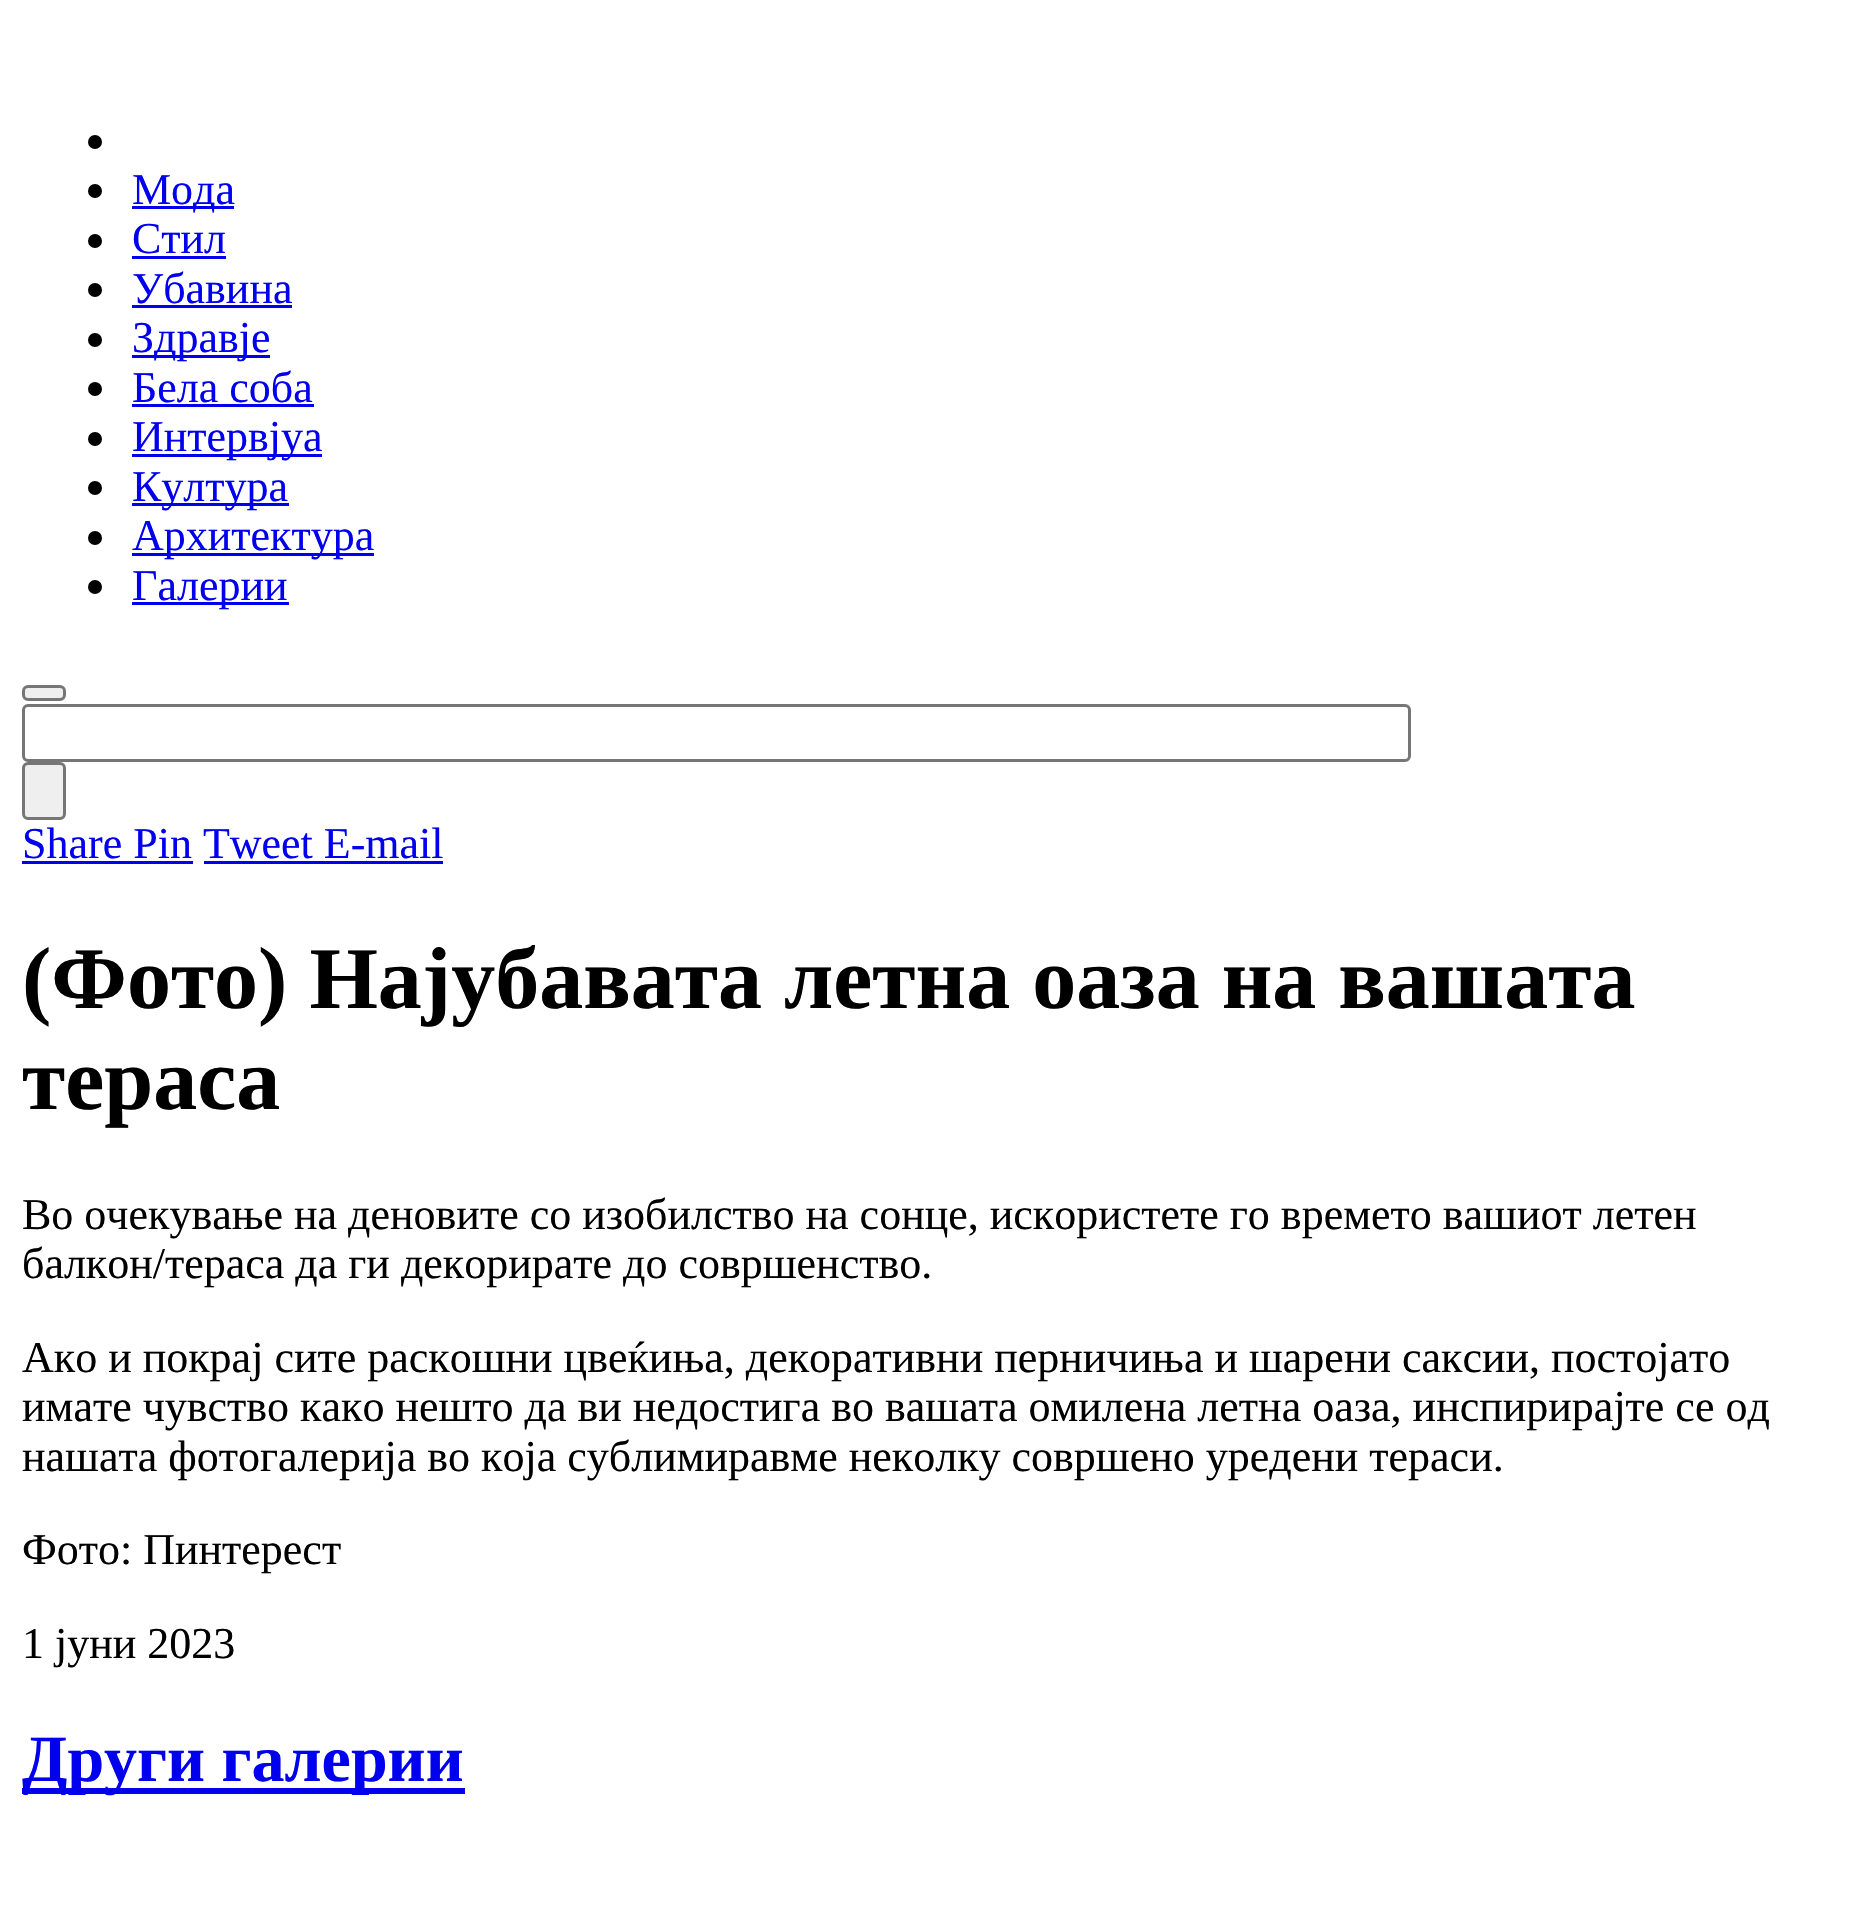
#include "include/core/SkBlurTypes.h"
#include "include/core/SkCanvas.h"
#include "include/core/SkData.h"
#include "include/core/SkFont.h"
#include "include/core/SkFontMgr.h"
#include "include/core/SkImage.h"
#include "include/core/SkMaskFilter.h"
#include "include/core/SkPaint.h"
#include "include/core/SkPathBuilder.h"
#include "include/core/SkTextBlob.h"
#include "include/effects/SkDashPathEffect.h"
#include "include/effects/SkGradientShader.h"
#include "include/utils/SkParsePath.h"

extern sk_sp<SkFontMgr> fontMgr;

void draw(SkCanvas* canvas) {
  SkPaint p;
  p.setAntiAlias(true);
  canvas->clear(SK_ColorWHITE);
  p.setColor(SK_ColorBLACK);
  canvas->drawCircle(95, 142, 7, p);
  canvas->drawCircle(95, 191, 7, p);
  p.setColor(SkColorSetRGB(0, 0, 238));
  canvas->drawRect(SkRect::MakeLTRB(132, 206, 234, 209), p);
  p.setColor(SK_ColorBLACK);
  canvas->drawCircle(95, 241, 7, p);
  p.setColor(SkColorSetRGB(0, 0, 238));
  canvas->drawRect(SkRect::MakeLTRB(132, 256, 226, 259), p);
  p.setColor(SK_ColorBLACK);
  canvas->drawCircle(95, 290, 7, p);
  p.setColor(SkColorSetRGB(0, 0, 238));
  canvas->drawRect(SkRect::MakeLTRB(132, 305, 292, 308), p);
  p.setColor(SK_ColorBLACK);
  canvas->drawCircle(95, 340, 7, p);
  p.setColor(SkColorSetRGB(0, 0, 238));
  canvas->drawRect(SkRect::MakeLTRB(132, 355, 270, 358), p);
  p.setColor(SK_ColorBLACK);
  canvas->drawCircle(95, 389, 7, p);
  p.setColor(SkColorSetRGB(0, 0, 238));
  canvas->drawRect(SkRect::MakeLTRB(132, 404, 314, 407), p);
  p.setColor(SK_ColorBLACK);
  canvas->drawCircle(95, 439, 7, p);
  p.setColor(SkColorSetRGB(0, 0, 238));
  canvas->drawRect(SkRect::MakeLTRB(132, 454, 322, 457), p);
  p.setColor(SK_ColorBLACK);
  canvas->drawCircle(95, 488, 7, p);
  p.setColor(SkColorSetRGB(0, 0, 238));
  canvas->drawRect(SkRect::MakeLTRB(132, 503, 289, 506), p);
  p.setColor(SK_ColorBLACK);
  canvas->drawCircle(95, 538, 7, p);
  p.setColor(SkColorSetRGB(0, 0, 238));
  canvas->drawRect(SkRect::MakeLTRB(132, 553, 374, 556), p);
  p.setColor(SK_ColorBLACK);
  canvas->drawCircle(95, 587, 7, p);
  p.setColor(SkColorSetRGB(0, 0, 238));
  canvas->drawRect(SkRect::MakeLTRB(132, 602, 289, 605), p);
  p.setColor(SkColorSetRGB(239, 239, 239));
  canvas->drawRoundRect(SkRect::MakeLTRB(23.5f, 686.5f, 64.5f, 699.5f), 4.5f, 4.5f, p);
  p.setStyle(SkPaint::kStroke_Style);
  p.setStrokeWidth(3);
  p.setColor(SkColorSetRGB(118, 118, 118));
  canvas->drawRoundRect(SkRect::MakeLTRB(23.5f, 686.5f, 64.5f, 699.5f), 4.5f, 4.5f, p);
  canvas->drawRoundRect(SkRect::MakeLTRB(23.5f, 705.5f, 1409.5f, 760.5f), 4.5f, 4.5f, p);
  p.setStyle(SkPaint::kFill_Style);
  p.setColor(SkColorSetRGB(239, 239, 239));
  canvas->drawRoundRect(SkRect::MakeLTRB(23.5f, 763.5f, 64.5f, 818.5f), 4.5f, 4.5f, p);
  p.setStyle(SkPaint::kStroke_Style);
  p.setColor(SkColorSetRGB(118, 118, 118));
  canvas->drawRoundRect(SkRect::MakeLTRB(23.5f, 763.5f, 64.5f, 818.5f), 4.5f, 4.5f, p);
  p.setStyle(SkPaint::kFill_Style);
  p.setColor(SkColorSetRGB(0, 0, 238));
  canvas->drawRect(SkRect::MakeLTRB(22, 861, 193, 864), p);
  canvas->drawRect(SkRect::MakeLTRB(204, 861, 443, 864), p);
  canvas->drawRect(SkRect::MakeLTRB(22, 1788, 465, 1794), p);
  SkFont font1(fontMgr->matchFamilyStyle("Liberation Serif", SkFontStyle::Normal()), 44);
  font1.setSubpixel(true);
  canvas->drawString("Мода", 132, 204, font1, p);
  canvas->drawString("Стил", 132, 253, font1, p);
  canvas->drawString("Убавина", 132, 303, font1, p);
  canvas->drawString("Здравје", 132, 352, font1, p);
  canvas->drawString("Бела соба", 132, 402, font1, p);
  canvas->drawString("Интервјуа", 132, 451, font1, p);
  canvas->drawString("Култура", 132, 501, font1, p);
  canvas->drawString("Архитектура", 132, 550, font1, p);
  canvas->drawString("Галерии", 132, 600, font1, p);
  canvas->drawString("Share Pin Tweet E-mail", 22, 858, font1, p);
  SkFont font2(fontMgr->matchFamilyStyle("Liberation Serif", SkFontStyle::Bold()), 88);
  font2.setSubpixel(true);
  p.setColor(SK_ColorBLACK);
  canvas->drawString("(Фото) Најубавата летна оаза на вашата", 22, 1008, font2, p);
  canvas->drawString("тераса", 22, 1109, font2, p);
  canvas->drawString("Во очекување на деновите со изобилство на сонце, искористете го времето вашиот летен", 22, 1229, font1, p);
  canvas->drawString("балкон/тераса да ги декорирате до совршенство.", 22, 1278, font1, p);
  canvas->drawString("Ако и покрај сите раскошни цвеќиња, декоративни перничиња и шарени саксии, постојато", 22, 1372, font1, p);
  canvas->drawString("имате чувство како нешто да ви недостига во вашата омилена летна оаза, инспирирајте се од", 22, 1421, font1, p);
  canvas->drawString("нашата фотогалерија во која сублимиравме неколку совршено уредени тераси.", 22, 1471, font1, p);
  canvas->drawString("Фото: Пинтерест", 22, 1564, font1, p);
  canvas->drawString("1 јуни 2023", 22, 1658, font1, p);
  SkFont font3(fontMgr->matchFamilyStyle("Liberation Serif", SkFontStyle::Bold()), 66);
  font3.setSubpixel(true);
  p.setColor(SkColorSetRGB(0, 0, 238));
  canvas->drawString("Други галерии", 22, 1781, font3, p);
}
